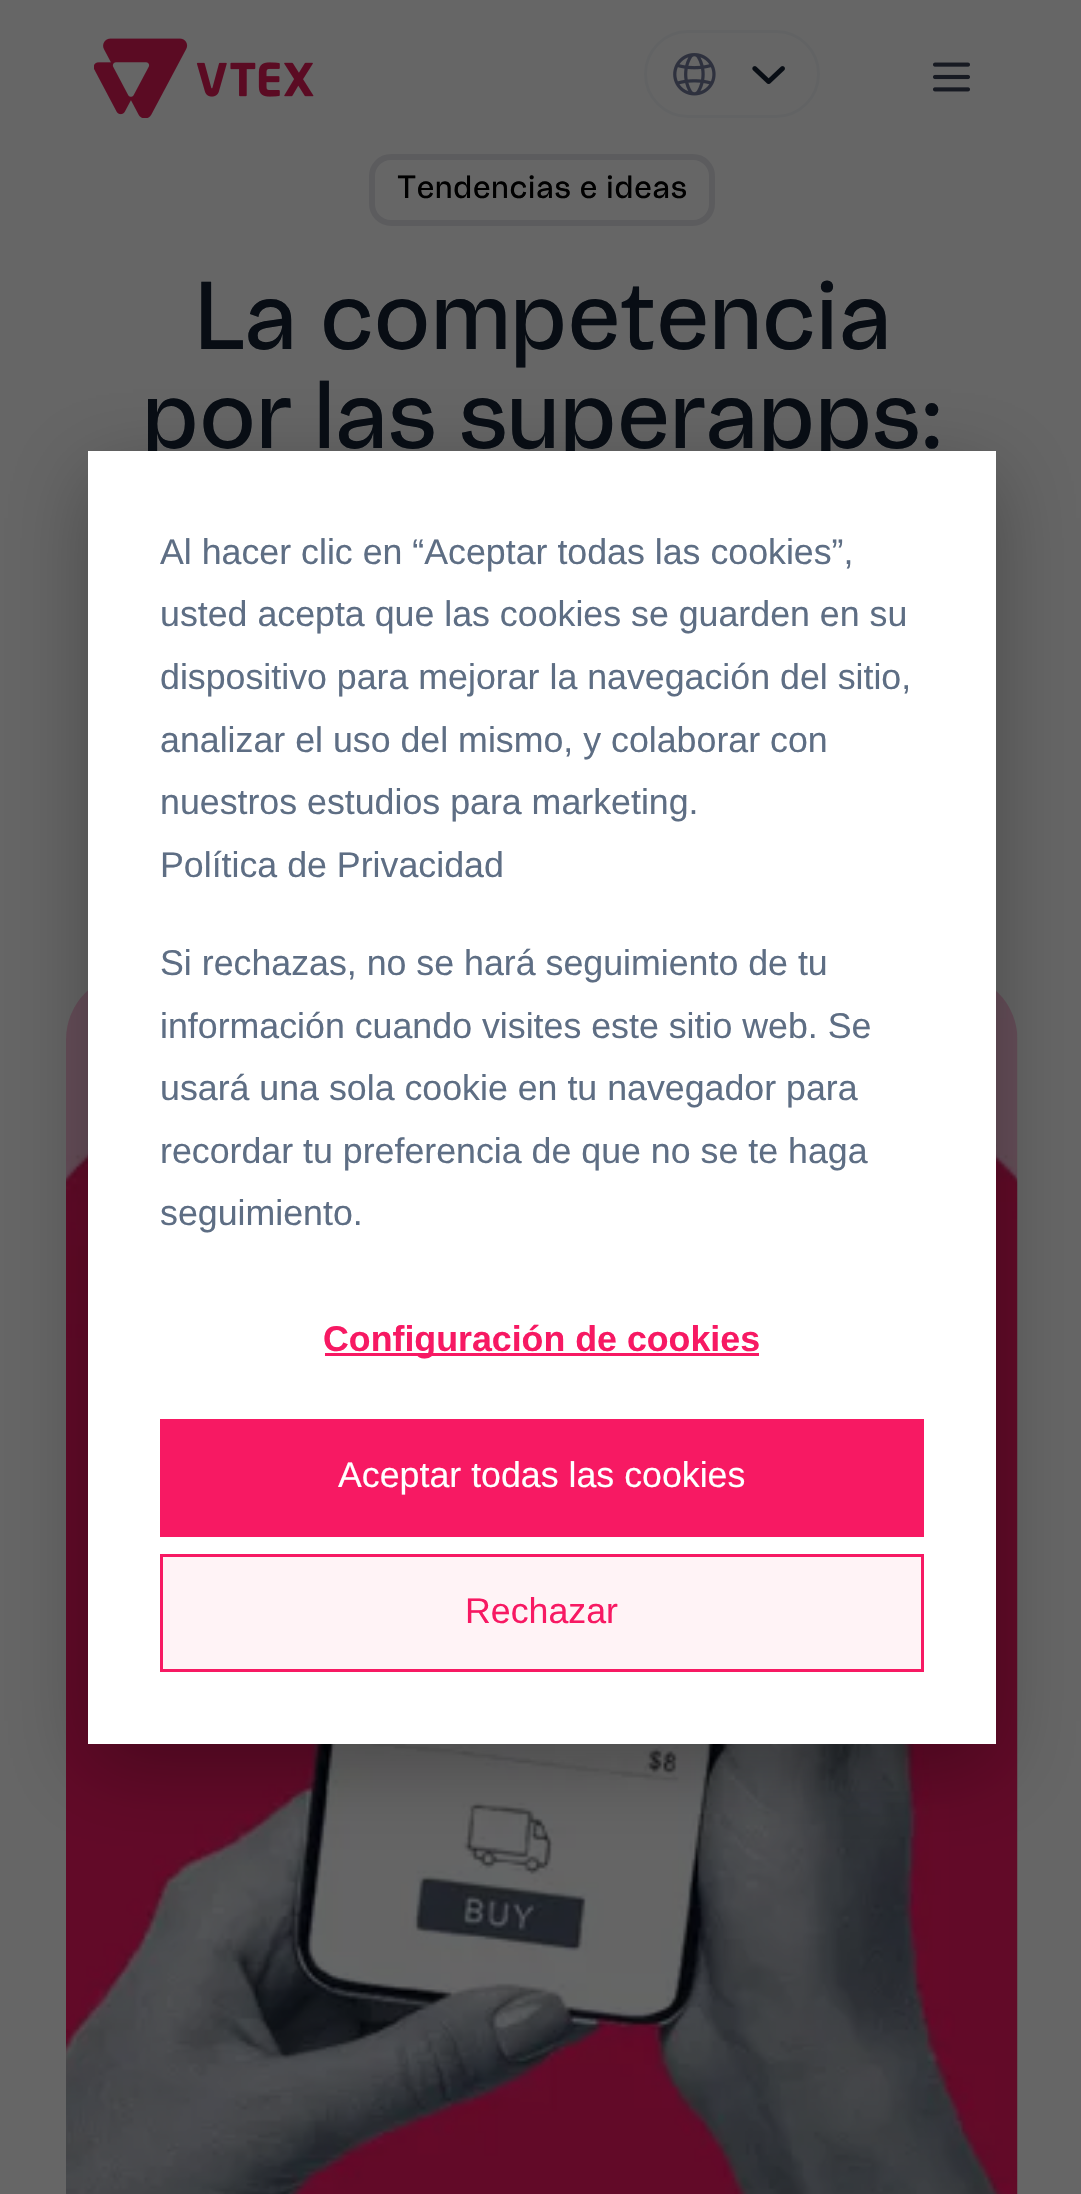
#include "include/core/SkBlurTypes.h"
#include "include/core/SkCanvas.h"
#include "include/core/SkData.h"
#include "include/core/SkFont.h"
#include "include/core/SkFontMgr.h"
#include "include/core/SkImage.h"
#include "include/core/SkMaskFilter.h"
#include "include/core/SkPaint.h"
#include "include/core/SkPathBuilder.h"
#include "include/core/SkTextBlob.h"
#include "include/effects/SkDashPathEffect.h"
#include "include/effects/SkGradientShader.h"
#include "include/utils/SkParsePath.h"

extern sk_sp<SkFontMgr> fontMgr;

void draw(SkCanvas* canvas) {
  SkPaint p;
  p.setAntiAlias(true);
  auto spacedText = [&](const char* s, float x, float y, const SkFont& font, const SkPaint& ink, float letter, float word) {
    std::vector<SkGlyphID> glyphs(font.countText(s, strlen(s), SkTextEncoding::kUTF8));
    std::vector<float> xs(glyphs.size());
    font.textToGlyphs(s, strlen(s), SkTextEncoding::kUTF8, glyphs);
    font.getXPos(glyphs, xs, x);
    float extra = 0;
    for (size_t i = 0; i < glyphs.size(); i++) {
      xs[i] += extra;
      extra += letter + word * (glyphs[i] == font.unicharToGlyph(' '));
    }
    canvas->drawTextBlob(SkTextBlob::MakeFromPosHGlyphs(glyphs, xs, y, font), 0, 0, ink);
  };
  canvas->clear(SkColorSetRGB(102, 102, 102));
  canvas->drawImageRect(SkImages::DeferredFromEncodedData(SkData::MakeFromFileName("images/1.png")), SkRect::MakeLTRB(94, 38, 314, 118), SkSamplingOptions());
  p.setStyle(SkPaint::kStroke_Style);
  p.setStrokeWidth(3);
  p.setColor(SkColorSetRGB(98, 99, 100));
  canvas->drawRoundRect(SkRect::MakeLTRB(645.5f, 31.5f, 818.5f, 116.5f), 42.5f, 42.5f, p);
  canvas->drawImageRect(SkImages::DeferredFromEncodedData(SkData::MakeFromFileName("images/2.png")), SkRect::MakeLTRB(673, 53, 716, 96), SkSamplingOptions());
  canvas->drawImageRect(SkImages::DeferredFromEncodedData(SkData::MakeFromFileName("images/3.png")), SkRect::MakeLTRB(752, 66, 785, 84), SkSamplingOptions());
  canvas->drawImageRect(SkImages::DeferredFromEncodedData(SkData::MakeFromFileName("images/4.png")), SkRect::MakeLTRB(933, 62, 970, 92), SkSamplingOptions());
  p.setStrokeWidth(6);
  p.setColor(SkColorSetRGB(92, 92, 94));
  canvas->drawRoundRect(SkRect::MakeLTRB(372, 157, 712, 223), 19, 19, p);
  canvas->drawImageRect(SkImages::DeferredFromEncodedData(SkData::MakeFromFileName("images/5.png")), SkRect::MakeLTRB(66, 990, 1018, 2194), SkSamplingOptions());
  p.setStyle(SkPaint::kFill_Style);
  p.setColor(SkColorSetARGB(71, 0, 0, 0));
  p.setMaskFilter(SkMaskFilter::MakeBlur(kNormal_SkBlurStyle, 38.5f));
  canvas->drawRect(SkRect::MakeLTRB(88, 473, 996, 1766), p);
  p.setMaskFilter(nullptr);
  SkFont font1(fontMgr->matchFamilyStyle("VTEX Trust", SkFontStyle::Normal()), 33);
  font1.setSubpixel(true);
  p.setColor(SK_ColorBLACK);
  canvas->drawString("Tendencias e ideas", 397, 198, font1, p);
  SkFont font2(fontMgr->matchFamilyStyle("VTEX Trust", SkFontStyle::Normal()), 99);
  font2.setSubpixel(true);
  p.setColor(SkColorSetRGB(8, 13, 20));
  spacedText("La competencia", 193, 349, font2, p, -2, 0);
  spacedText("por las superapps:", 141, 448, font2, p, -2, 0);
  p.setColor(SK_ColorWHITE);
  canvas->drawRect(SkRect::MakeLTRB(88, 451, 996, 1744), p);
  SkFont font3(fontMgr->matchFamilyStyle("Liberation Sans", SkFontStyle::Normal()), 35.75f);
  font3.setSubpixel(true);
  p.setColor(SkColorSetRGB(94, 110, 132));
  canvas->drawString("Al hacer clic en “Aceptar todas las cookies”,", 160, 564, font3, p);
  canvas->drawString("usted acepta que las cookies se guarden en su", 160, 626, font3, p);
  canvas->drawString("dispositivo para mejorar la navegación del sitio,", 160, 689, font3, p);
  canvas->drawString("analizar el uso del mismo, y colaborar con", 160, 752, font3, p);
  canvas->drawString("nuestros estudios para marketing.", 160, 814, font3, p);
  canvas->drawString("Política de Privacidad", 160, 877, font3, p);
  canvas->drawString("Si rechazas, no se hará seguimiento de tu", 160, 975, font3, p);
  canvas->drawString("información cuando visites este sitio web. Se", 160, 1038, font3, p);
  canvas->drawString("usará una sola cookie en tu navegador para", 160, 1100, font3, p);
  canvas->drawString("recordar tu preferencia de que no se te haga", 160, 1163, font3, p);
  canvas->drawString("seguimiento.", 160, 1225, font3, p);
  p.setColor(SkColorSetRGB(247, 25, 99));
  canvas->drawRect(SkRect::MakeLTRB(325, 1353, 759, 1356), p);
  SkFont font4(fontMgr->matchFamilyStyle("Liberation Sans", SkFontStyle::Bold()), 35.75f);
  font4.setSubpixel(true);
  canvas->drawString("Configuración de cookies", 323, 1351, font4, p);
  canvas->drawRect(SkRect::MakeLTRB(160, 1419, 924, 1537), p);
  p.setColor(SK_ColorWHITE);
  canvas->drawString("Aceptar todas las cookies", 338, 1487, font3, p);
  p.setColor(SkColorSetRGB(255, 243, 246));
  canvas->drawRect(SkRect::MakeLTRB(161.5f, 1555.5f, 922.5f, 1670.5f), p);
  p.setStyle(SkPaint::kStroke_Style);
  p.setStrokeWidth(3);
  p.setColor(SkColorSetRGB(247, 25, 99));
  canvas->drawRect(SkRect::MakeLTRB(161.5f, 1555.5f, 922.5f, 1670.5f), p);
  p.setStyle(SkPaint::kFill_Style);
  canvas->drawString("Rechazar", 465, 1623, font3, p);
}
